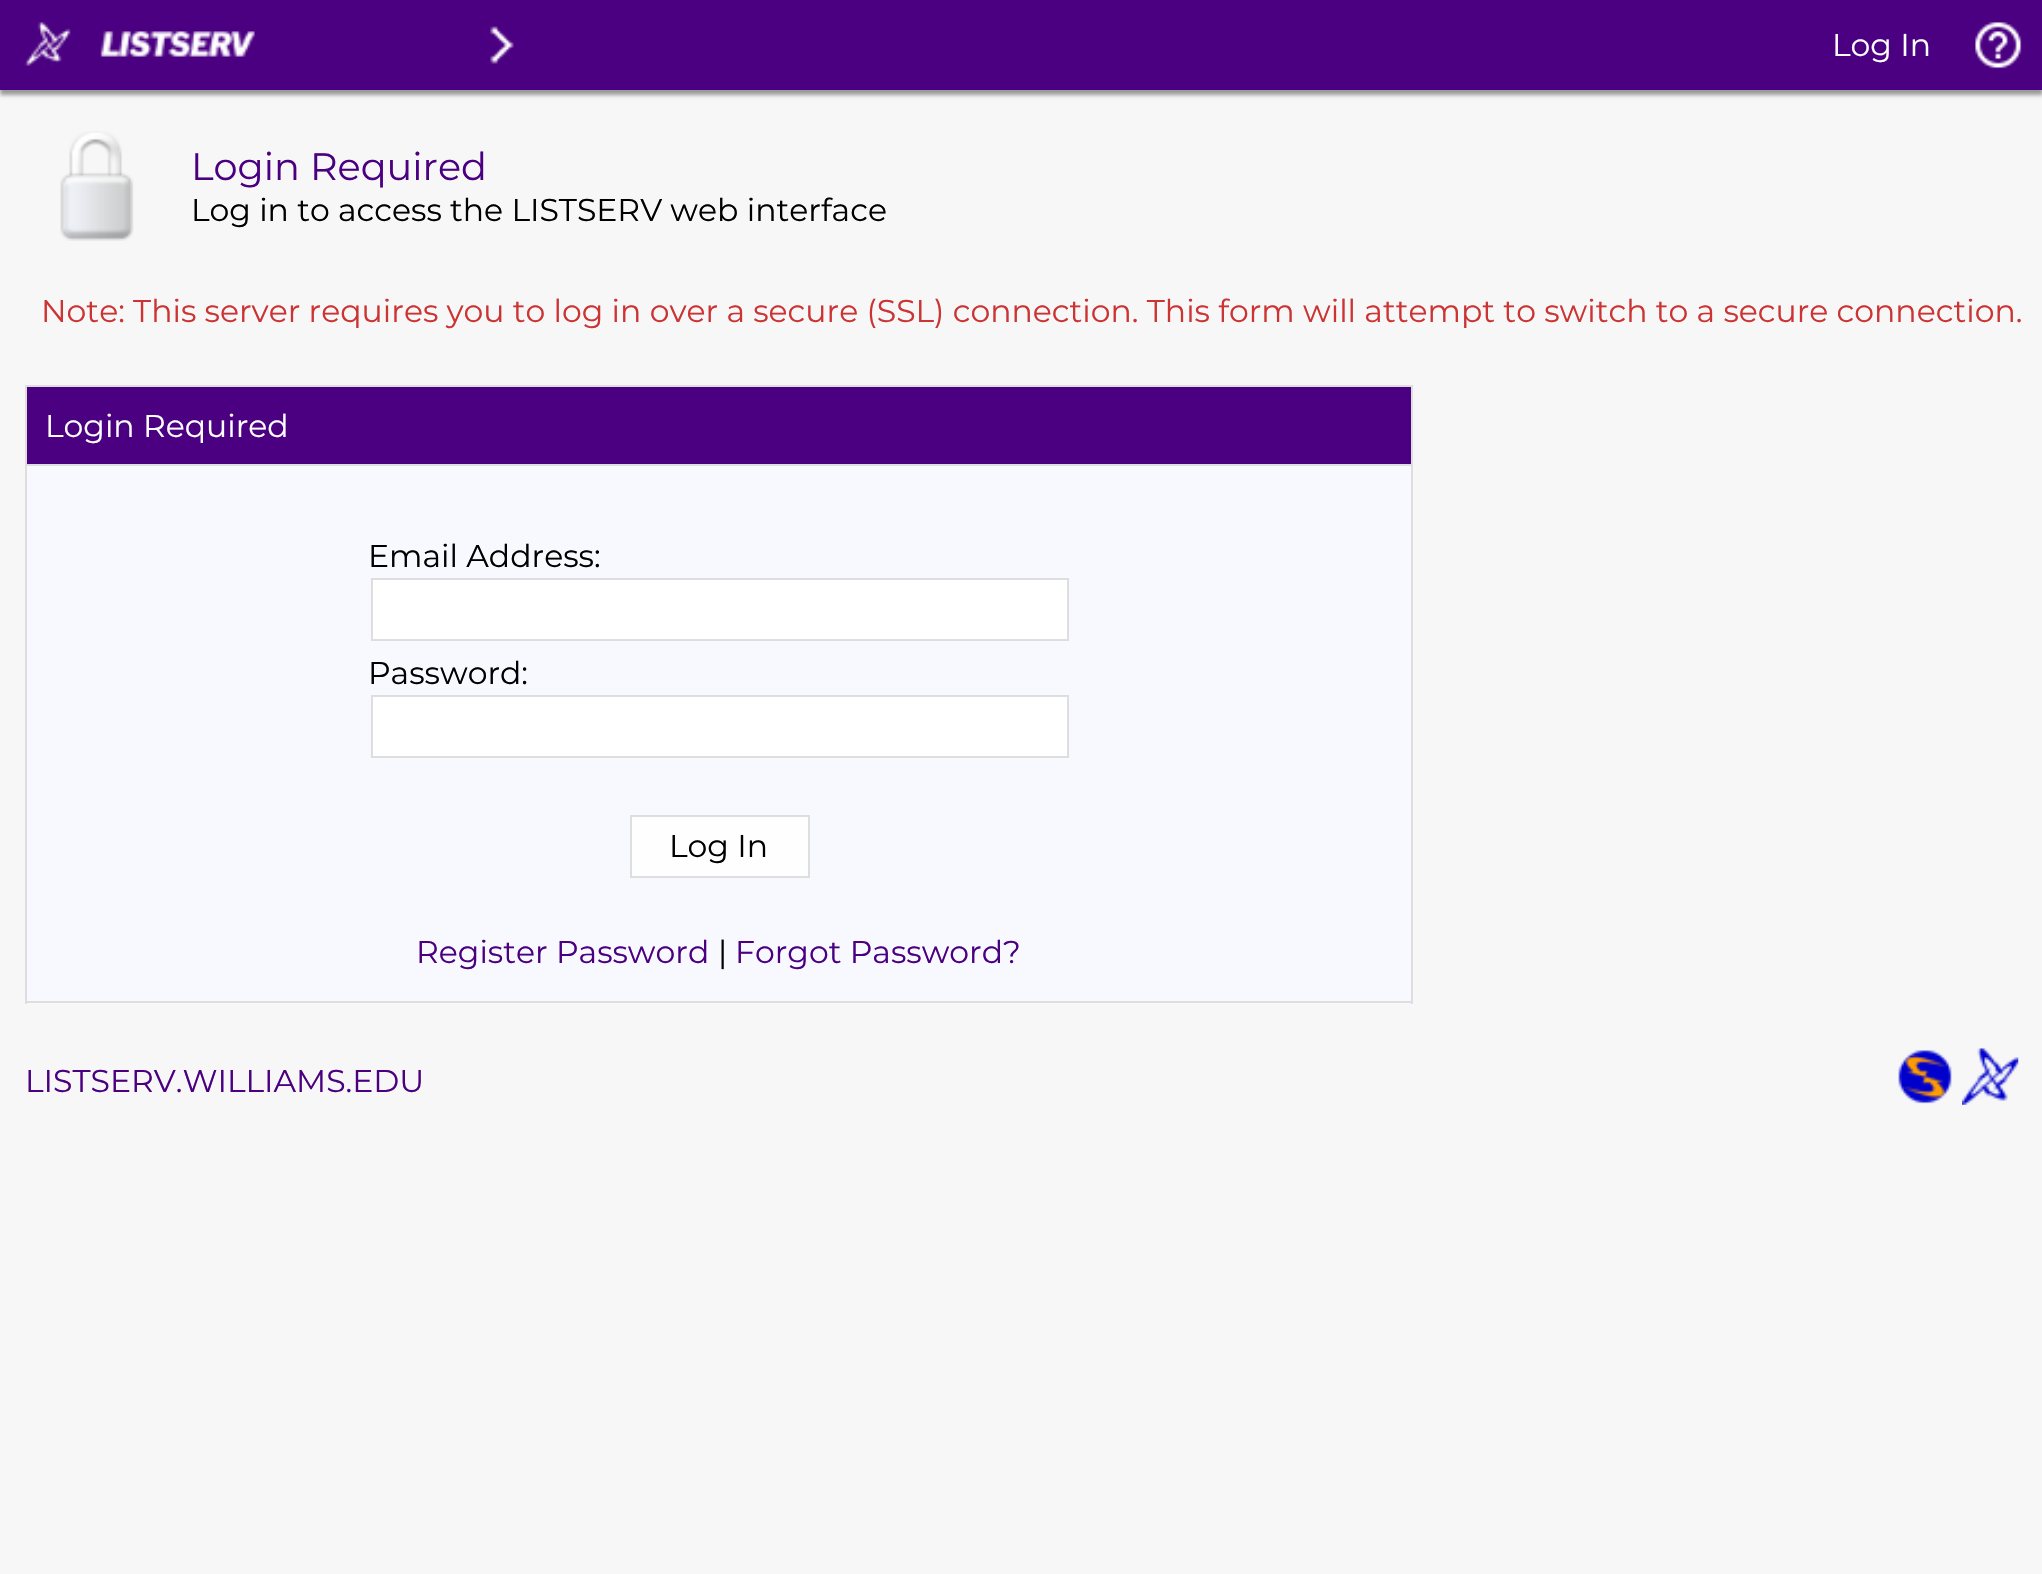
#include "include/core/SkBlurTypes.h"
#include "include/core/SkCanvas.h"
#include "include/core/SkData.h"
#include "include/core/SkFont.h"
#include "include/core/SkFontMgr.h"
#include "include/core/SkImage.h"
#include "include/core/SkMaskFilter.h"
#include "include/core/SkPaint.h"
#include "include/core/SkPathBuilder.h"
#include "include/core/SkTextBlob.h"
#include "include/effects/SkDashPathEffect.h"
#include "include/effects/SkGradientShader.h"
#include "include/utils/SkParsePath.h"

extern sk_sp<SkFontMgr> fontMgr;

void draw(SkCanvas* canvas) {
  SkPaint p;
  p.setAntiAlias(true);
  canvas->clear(SkColorSetRGB(247, 247, 247));
  p.setColor(SkColorSetRGB(153, 153, 153));
  p.setMaskFilter(SkMaskFilter::MakeBlur(kNormal_SkBlurStyle, 2));
  canvas->drawRect(SkRect::MakeLTRB(0, 5, 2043, 95), p);
  p.setMaskFilter(nullptr);
  p.setColor(SkColorSetRGB(75, 0, 130));
  canvas->drawRect(SkRect::MakeLTRB(0, 0, 2042, 90), p);
  canvas->drawImageRect(SkImages::DeferredFromEncodedData(SkData::MakeFromFileName("images/1.png")), SkRect::MakeLTRB(24, 22, 71, 66), SkSamplingOptions());
  canvas->drawImageRect(SkImages::DeferredFromEncodedData(SkData::MakeFromFileName("images/2.png")), SkRect::MakeLTRB(100, 31, 255, 57), SkSamplingOptions());
  canvas->drawImageRect(SkImages::DeferredFromEncodedData(SkData::MakeFromFileName("images/3.png")), SkRect::MakeLTRB(490, 26, 514, 64), SkSamplingOptions());
  canvas->drawImageRect(SkImages::DeferredFromEncodedData(SkData::MakeFromFileName("images/4.png")), SkRect::MakeLTRB(1975, 22, 2022, 69), SkSamplingOptions());
  canvas->drawImageRect(SkImages::DeferredFromEncodedData(SkData::MakeFromFileName("images/5.png")), SkRect::MakeLTRB(60, 131, 134, 241), SkSamplingOptions());
  canvas->drawRect(SkRect::MakeLTRB(26, 386, 1412, 465), p);
  p.setStyle(SkPaint::kStroke_Style);
  p.setStrokeWidth(2);
  p.setColor(SkColorSetRGB(222, 222, 222));
  canvas->drawRect(SkRect::MakeLTRB(26, 386, 1412, 465), p);
  p.setStyle(SkPaint::kFill_Style);
  p.setColor(SkColorSetRGB(247, 249, 254));
  canvas->drawRect(SkRect::MakeLTRB(27, 466, 1411, 1004), p);
  p.setColor(SkColorSetRGB(222, 222, 222));
  canvas->drawRect(SkRect::MakeLTRB(1411, 466, 1413, 1004), p);
  canvas->drawRect(SkRect::MakeLTRB(25, 1001, 1413, 1003), p);
  canvas->drawRect(SkRect::MakeLTRB(25, 466, 27, 1004), p);
  p.setColor(SK_ColorWHITE);
  canvas->drawRect(SkRect::MakeLTRB(372, 579, 1068, 640), p);
  p.setStyle(SkPaint::kStroke_Style);
  p.setColor(SkColorSetRGB(222, 222, 222));
  canvas->drawRect(SkRect::MakeLTRB(372, 579, 1068, 640), p);
  p.setStyle(SkPaint::kFill_Style);
  p.setColor(SK_ColorWHITE);
  canvas->drawRect(SkRect::MakeLTRB(372, 696, 1068, 757), p);
  p.setStyle(SkPaint::kStroke_Style);
  p.setColor(SkColorSetRGB(222, 222, 222));
  canvas->drawRect(SkRect::MakeLTRB(372, 696, 1068, 757), p);
  p.setStyle(SkPaint::kFill_Style);
  p.setColor(SkColorSetRGB(254, 254, 254));
  canvas->drawRect(SkRect::MakeLTRB(631, 816, 809, 877), p);
  p.setStyle(SkPaint::kStroke_Style);
  p.setColor(SkColorSetRGB(222, 222, 222));
  canvas->drawRect(SkRect::MakeLTRB(631, 816, 809, 877), p);
  canvas->drawImageRect(SkImages::DeferredFromEncodedData(SkData::MakeFromFileName("images/6.png")), SkRect::MakeLTRB(1898, 1050, 1952, 1104), SkSamplingOptions());
  canvas->drawImageRect(SkImages::DeferredFromEncodedData(SkData::MakeFromFileName("images/7.png")), SkRect::MakeLTRB(1962, 1048, 2019, 1105), SkSamplingOptions());
  SkFont font1(fontMgr->matchFamilyStyle("Montserrat", SkFontStyle(100, SkFontStyle::kNormal_Width, SkFontStyle::kUpright_Slant)), 31.5f);
  font1.setSubpixel(true);
  p.setStyle(SkPaint::kFill_Style);
  p.setColor(SK_ColorWHITE);
  canvas->drawString("Log In", 1832, 56, font1, p);
  SkFont font2(fontMgr->matchFamilyStyle("Montserrat", SkFontStyle(100, SkFontStyle::kNormal_Width, SkFontStyle::kUpright_Slant)), 38.25f);
  font2.setSubpixel(true);
  p.setColor(SkColorSetRGB(75, 0, 130));
  canvas->drawString("Login Required", 191, 180, font2, p);
  p.setColor(SK_ColorBLACK);
  canvas->drawString("Log in to access the LISTSERV web interface", 191, 221, font1, p);
  p.setColor(SkColorSetRGB(204, 51, 51));
  canvas->drawString("Note: This server requires you to log in over a secure (SSL) connection. This form will attempt to switch to a secure connection.", 41, 322, font1, p);
  p.setColor(SK_ColorWHITE);
  canvas->drawString("Login Required", 45, 437, font1, p);
  p.setColor(SK_ColorBLACK);
  canvas->drawString("Email Address:", 368, 567, font1, p);
  canvas->drawString("Password:", 368, 684, font1, p);
  canvas->drawString("Log In", 669, 857, font1, p);
  p.setColor(SkColorSetRGB(75, 0, 130));
  canvas->drawString("Register Password", 416, 963, font1, p);
  p.setColor(SK_ColorBLACK);
  canvas->drawString("|", 718, 963, font1, p);
  p.setColor(SkColorSetRGB(75, 0, 130));
  canvas->drawString("Forgot Password?", 735, 963, font1, p);
  canvas->drawString("LISTSERV.WILLIAMS.EDU", 25, 1092, font1, p);
}
